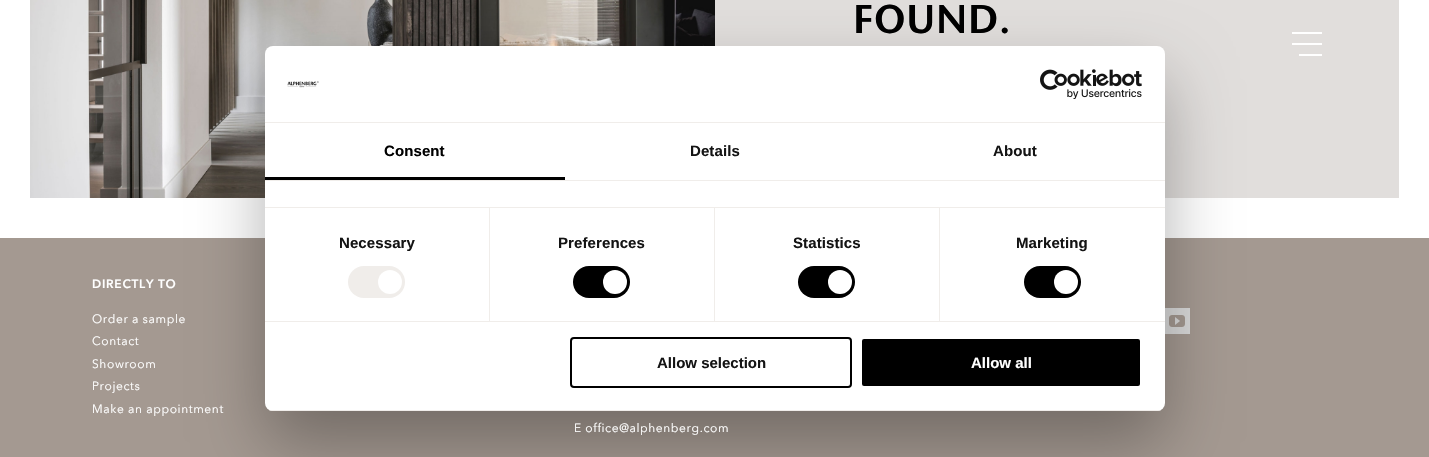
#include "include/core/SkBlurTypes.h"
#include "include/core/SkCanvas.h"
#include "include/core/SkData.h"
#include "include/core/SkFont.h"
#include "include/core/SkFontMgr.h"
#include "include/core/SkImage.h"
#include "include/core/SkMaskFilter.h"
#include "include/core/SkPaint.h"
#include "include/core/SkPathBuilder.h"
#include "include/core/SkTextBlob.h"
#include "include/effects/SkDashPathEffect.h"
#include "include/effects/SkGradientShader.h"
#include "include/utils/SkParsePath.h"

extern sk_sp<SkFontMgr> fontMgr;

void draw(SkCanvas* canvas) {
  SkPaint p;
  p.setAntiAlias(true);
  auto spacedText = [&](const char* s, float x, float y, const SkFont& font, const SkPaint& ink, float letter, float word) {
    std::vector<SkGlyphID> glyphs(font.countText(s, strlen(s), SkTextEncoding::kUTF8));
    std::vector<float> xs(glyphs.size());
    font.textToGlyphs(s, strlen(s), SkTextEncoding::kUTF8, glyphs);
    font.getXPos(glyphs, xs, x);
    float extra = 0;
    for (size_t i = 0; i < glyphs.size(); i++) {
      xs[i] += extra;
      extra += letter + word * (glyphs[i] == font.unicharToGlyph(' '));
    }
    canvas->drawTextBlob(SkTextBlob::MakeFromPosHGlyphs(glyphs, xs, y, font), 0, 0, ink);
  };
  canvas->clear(SK_ColorWHITE);
  canvas->drawImageRect(SkImages::DeferredFromEncodedData(SkData::MakeFromFileName("images/1.png")), SkRect::MakeLTRB(30, 0, 715, 198), SkSamplingOptions());
  p.setColor(SkColorSetRGB(225, 222, 220));
  canvas->drawRect(SkRect::MakeLTRB(715, 0, 1399, 198), p);
  p.setColor(SK_ColorWHITE);
  canvas->drawRect(SkRect::MakeLTRB(1292, 32, 1322, 34), p);
  canvas->drawRect(SkRect::MakeLTRB(1292, 43, 1322, 45), p);
  canvas->drawRect(SkRect::MakeLTRB(1299, 54, 1322, 56), p);
  p.setColor(SkColorSetRGB(164, 153, 145));
  canvas->drawRect(SkRect::MakeLTRB(0, 238, 1429, 457), p);
  p.setColor(SkColorSetRGB(217, 217, 217));
  canvas->drawRect(SkRect::MakeLTRB(1165, 308, 1190, 334), p);
  canvas->drawImageRect(SkImages::DeferredFromEncodedData(SkData::MakeFromFileName("images/2.png")), SkRect::MakeLTRB(1169, 315, 1185, 327), SkSamplingOptions());
  p.setColor(SkColorSetARGB(77, 0, 0, 0));
  p.setMaskFilter(SkMaskFilter::MakeBlur(kNormal_SkBlurStyle, 34));
  canvas->drawRoundRect(SkRect::MakeLTRB(265, 78, 1165, 443), 8, 8, p);
  p.setMaskFilter(nullptr);
  p.setColor(SK_ColorWHITE);
  canvas->drawRoundRect(SkRect::MakeLTRB(265, 46, 1165, 411), 8, 8, p);
  p.setColor(SkColorSetRGB(240, 237, 234));
  canvas->drawRect(SkRect::MakeLTRB(265, 122, 1165, 123), p);
  canvas->drawImageRect(SkImages::DeferredFromEncodedData(SkData::MakeFromFileName("images/3.png")), SkRect::MakeLTRB(287, 81, 319, 88), SkSamplingOptions());
  canvas->drawImageRect(SkImages::DeferredFromEncodedData(SkData::MakeFromFileName("images/4.png")), SkRect::MakeLTRB(1040, 69, 1142, 99), SkSamplingOptions());
  canvas->drawRect(SkRect::MakeLTRB(265, 180, 1165, 181), p);
  p.setColor(SK_ColorBLACK);
  canvas->drawRect(SkRect::MakeLTRB(265, 177, 565, 180), p);
  p.setColor(SkColorSetRGB(240, 237, 234));
  canvas->drawRect(SkRect::MakeLTRB(265, 207, 1165, 208), p);
  canvas->drawRect(SkRect::MakeLTRB(265, 321, 1165, 322), p);
  canvas->drawRect(SkRect::MakeLTRB(489, 208, 490, 321), p);
  canvas->drawRoundRect(SkRect::MakeLTRB(348, 266, 405, 298), 16, 16, p);
  p.setColor(SK_ColorWHITE);
  canvas->drawCircle(390, 282, 12, p);
  p.setColor(SkColorSetRGB(240, 237, 234));
  canvas->drawRect(SkRect::MakeLTRB(714, 208, 715, 321), p);
  p.setColor(SK_ColorBLACK);
  canvas->drawRoundRect(SkRect::MakeLTRB(573, 266, 630, 298), 16, 16, p);
  p.setColor(SK_ColorWHITE);
  canvas->drawCircle(615, 282, 12, p);
  p.setColor(SkColorSetRGB(240, 237, 234));
  canvas->drawRect(SkRect::MakeLTRB(939, 208, 940, 321), p);
  p.setColor(SK_ColorBLACK);
  canvas->drawRoundRect(SkRect::MakeLTRB(798, 266, 855, 298), 16, 16, p);
  p.setColor(SK_ColorWHITE);
  canvas->drawCircle(840, 282, 12, p);
  p.setColor(SK_ColorBLACK);
  canvas->drawRoundRect(SkRect::MakeLTRB(1024, 266, 1081, 298), 16, 16, p);
  p.setColor(SK_ColorWHITE);
  canvas->drawCircle(1066, 282, 12, p);
  canvas->save();
  canvas->clipPath(SkPathBuilder().moveTo(273, 46).lineTo(1157, 46).cubicTo(1161.5f, 46, 1165, 49.5f, 1165, 54).lineTo(1165, 403).cubicTo(1165, 407.5f, 1161.5f, 411, 1157, 411).lineTo(273, 411).cubicTo(268.5f, 411, 265, 407.5f, 265, 403).lineTo(265, 54).cubicTo(265, 49.5f, 268.5f, 46, 273, 46).close().detach(), true);
  p.setColor(SkColorSetRGB(240, 237, 234));
  canvas->drawRect(SkRect::MakeLTRB(265, 410, 1165, 411), p);
  canvas->restore();
  p.setStyle(SkPaint::kStroke_Style);
  p.setStrokeWidth(2);
  p.setColor(SK_ColorBLACK);
  canvas->drawRoundRect(SkRect::MakeLTRB(571, 338, 851, 387), 3, 3, p);
  p.setStyle(SkPaint::kFill_Style);
  canvas->drawRoundRect(SkRect::MakeLTRB(861, 338, 1141, 387), 3, 3, p);
  p.setStyle(SkPaint::kStroke_Style);
  p.setColor(SK_ColorWHITE);
  canvas->drawRoundRect(SkRect::MakeLTRB(861, 338, 1141, 387), 3, 3, p);
  SkFont font1(fontMgr->matchFamilyStyle("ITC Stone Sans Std", SkFontStyle(600, SkFontStyle::kNormal_Width, SkFontStyle::kUpright_Slant)), 40);
  font1.setSubpixel(true);
  p.setStyle(SkPaint::kFill_Style);
  p.setColor(SK_ColorBLACK);
  spacedText("FOUND.", 853, 33, font1, p, 0.75f, 0);
  SkFont font2(fontMgr->matchFamilyStyle("Avenir Next", SkFontStyle(600, SkFontStyle::kNormal_Width, SkFontStyle::kUpright_Slant)), 12);
  font2.setSubpixel(true);
  p.setColor(SK_ColorWHITE);
  spacedText("DIRECTLY TO", 92, 288, font2, p, 0.75f, 0);
  SkFont font3(fontMgr->matchFamilyStyle("Avenir Next", SkFontStyle::Normal()), 12);
  font3.setSubpixel(true);
  spacedText("Order a sample", 92, 323, font3, p, 0.6f, 0);
  spacedText("Contact", 92, 345, font3, p, 0.6f, 0);
  spacedText("Showroom", 92, 368, font3, p, 0.6f, 0);
  spacedText("Projects", 92, 390, font3, p, 0.6f, 0);
  spacedText("Make an appointment", 92, 413, font3, p, 0.6f, 0);
  spacedText("E office@alphenberg.com", 574, 432, font3, p, 0.6f, 0);
  SkFont font4(fontMgr->matchFamilyStyle("Liberation Sans", SkFontStyle::Bold()), 15);
  font4.setSubpixel(true);
  p.setColor(SK_ColorBLACK);
  spacedText("Consent", 384, 156, font4, p, 0.1f, 0);
  p.setColor(SkColorSetRGB(20, 20, 20));
  spacedText("Details", 690, 156, font4, p, 0.1f, 0);
  spacedText("About", 993, 156, font4, p, 0.1f, 0);
  spacedText("Necessary", 339, 248, font4, p, 0.1f, 0);
  spacedText("Preferences", 558, 248, font4, p, 0.1f, 0);
  spacedText("Statistics", 793, 248, font4, p, 0.1f, 0);
  spacedText("Marketing", 1016, 248, font4, p, 0.1f, 0);
  canvas->drawString("Allow selection", 657, 368, font4, p);
  p.setColor(SK_ColorWHITE);
  canvas->drawString("Allow all", 971, 368, font4, p);
}
